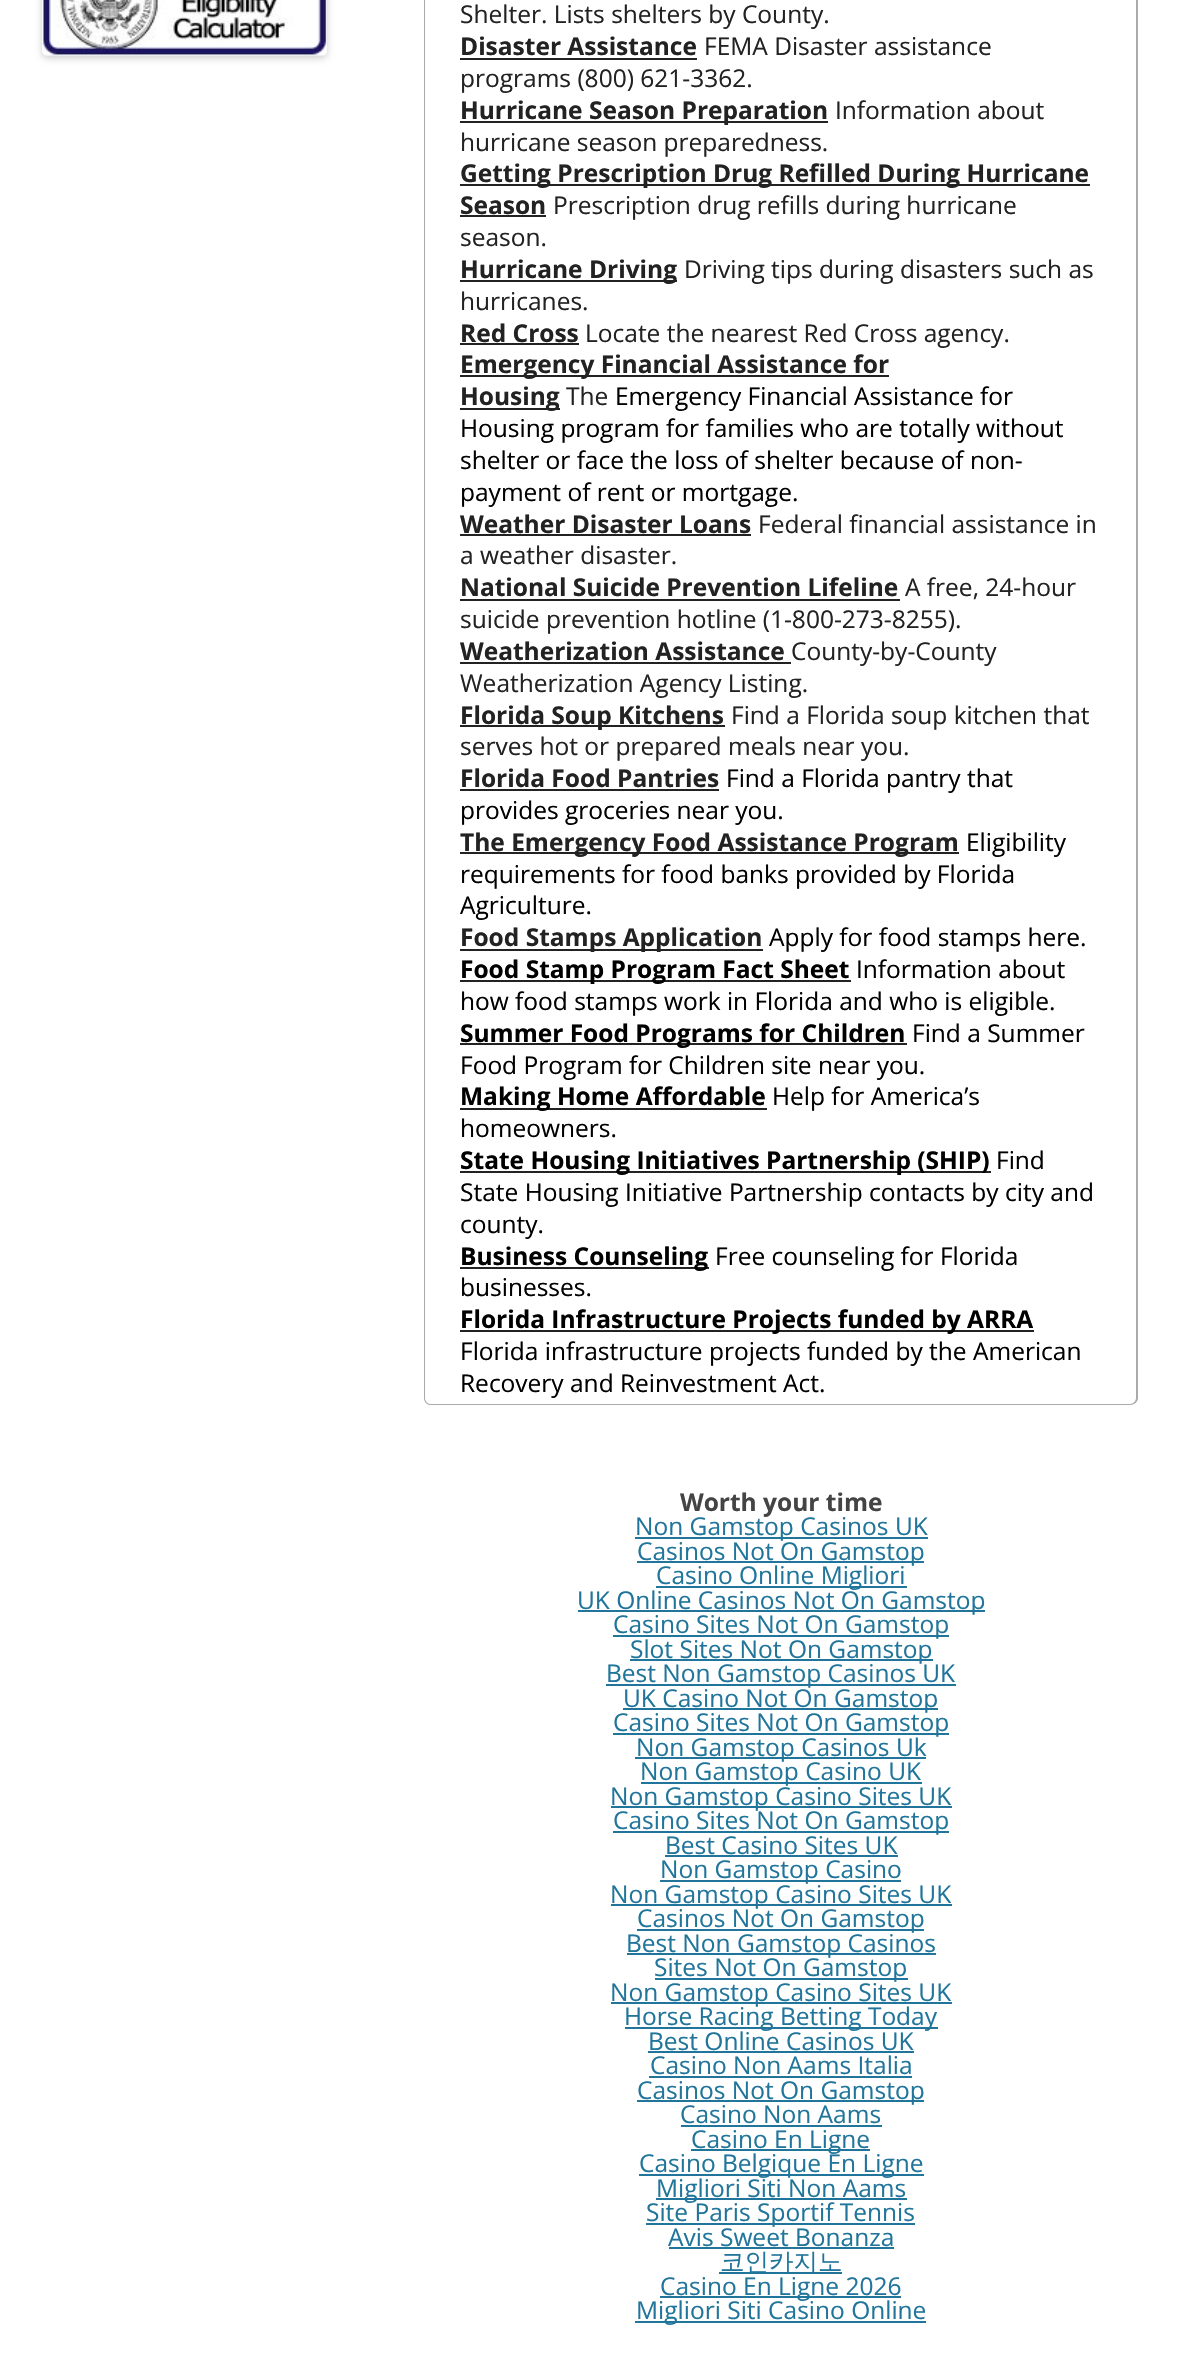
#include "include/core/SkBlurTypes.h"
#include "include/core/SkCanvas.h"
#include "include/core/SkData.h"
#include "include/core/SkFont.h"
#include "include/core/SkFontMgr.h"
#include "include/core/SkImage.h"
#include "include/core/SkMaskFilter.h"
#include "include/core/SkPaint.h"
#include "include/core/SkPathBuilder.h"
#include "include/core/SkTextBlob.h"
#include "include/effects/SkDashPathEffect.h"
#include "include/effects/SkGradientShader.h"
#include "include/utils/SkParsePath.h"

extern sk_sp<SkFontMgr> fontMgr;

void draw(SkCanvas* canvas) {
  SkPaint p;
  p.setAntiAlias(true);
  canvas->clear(SK_ColorWHITE);
  p.setColor(SkColorSetARGB(51, 0, 0, 0));
  p.setMaskFilter(SkMaskFilter::MakeBlur(kNormal_SkBlurStyle, 3.5f));
  canvas->drawRoundRect(SkRect::MakeLTRB(42, -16, 327, 58), 5, 5, p);
  p.setMaskFilter(nullptr);
  canvas->drawImageRect(SkImages::DeferredFromEncodedData(SkData::MakeFromFileName("images/1.png")), SkRect::MakeLTRB(42, 0, 327, 56), SkSamplingOptions());
  p.setColor(SkColorSetRGB(170, 170, 170));
  canvas->drawPath(SkPathBuilder(SkPathFillType::kEvenOdd).moveTo(424, -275).lineTo(1138, -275).lineTo(1138, 1398).cubicTo(1138, 1402, 1134, 1405, 1130, 1405).lineTo(430, 1405).cubicTo(427, 1405, 424, 1402, 424, 1398).close().moveTo(425, -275).lineTo(1136, -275).lineTo(1136, 1398).cubicTo(1136, 1401, 1133, 1404, 1130, 1404).lineTo(430, 1404).cubicTo(428, 1404, 425, 1401, 425, 1398).close().detach(), p);
  p.setColor(SkColorSetRGB(34, 34, 34));
  canvas->drawRect(SkRect::MakeLTRB(460, 58, 697, 60), p);
  canvas->drawRect(SkRect::MakeLTRB(460, 121, 828, 123), p);
  canvas->drawRect(SkRect::MakeLTRB(460, 184, 1090, 186), p);
  canvas->drawRect(SkRect::MakeLTRB(460, 215, 546, 217), p);
  canvas->drawRect(SkRect::MakeLTRB(460, 280, 677, 282), p);
  canvas->drawRect(SkRect::MakeLTRB(460, 343, 579, 345), p);
  canvas->drawRect(SkRect::MakeLTRB(460, 375, 889, 377), p);
  canvas->drawRect(SkRect::MakeLTRB(460, 408, 560, 410), p);
  canvas->drawRect(SkRect::MakeLTRB(460, 534, 751, 536), p);
  canvas->drawRect(SkRect::MakeLTRB(460, 599, 900, 601), p);
  canvas->drawRect(SkRect::MakeLTRB(460, 662, 791, 664), p);
  canvas->drawRect(SkRect::MakeLTRB(460, 725, 725, 727), p);
  canvas->drawRect(SkRect::MakeLTRB(460, 789, 719, 791), p);
  canvas->drawRect(SkRect::MakeLTRB(460, 852, 959, 854), p);
  canvas->drawRect(SkRect::MakeLTRB(460, 949, 763, 951), p);
  canvas->drawRect(SkRect::MakeLTRB(460, 980, 851, 982), p);
  canvas->drawRect(SkRect::MakeLTRB(460, 1043, 907, 1045), p);
  canvas->drawRect(SkRect::MakeLTRB(460, 1108, 767, 1110), p);
  canvas->drawRect(SkRect::MakeLTRB(460, 1171, 991, 1173), p);
  canvas->drawRect(SkRect::MakeLTRB(460, 1267, 709, 1269), p);
  canvas->drawRect(SkRect::MakeLTRB(460, 1330, 1034, 1332), p);
  p.setColor(SkColorSetRGB(33, 117, 155));
  canvas->drawRect(SkRect::MakeLTRB(635, 1537, 928, 1539), p);
  canvas->drawRect(SkRect::MakeLTRB(637, 1561, 924, 1563), p);
  canvas->drawRect(SkRect::MakeLTRB(656, 1586, 907, 1588), p);
  canvas->drawRect(SkRect::MakeLTRB(578, 1610, 985, 1612), p);
  canvas->drawRect(SkRect::MakeLTRB(613, 1635, 949, 1637), p);
  canvas->drawRect(SkRect::MakeLTRB(630, 1659, 933, 1661), p);
  canvas->drawRect(SkRect::MakeLTRB(606, 1684, 956, 1686), p);
  canvas->drawRect(SkRect::MakeLTRB(623, 1708, 938, 1710), p);
  canvas->drawRect(SkRect::MakeLTRB(613, 1733, 949, 1735), p);
  canvas->drawRect(SkRect::MakeLTRB(635, 1757, 926, 1759), p);
  canvas->drawRect(SkRect::MakeLTRB(641, 1782, 922, 1784), p);
  canvas->drawRect(SkRect::MakeLTRB(611, 1806, 952, 1808), p);
  canvas->drawRect(SkRect::MakeLTRB(613, 1831, 949, 1833), p);
  canvas->drawRect(SkRect::MakeLTRB(665, 1855, 898, 1857), p);
  canvas->drawRect(SkRect::MakeLTRB(660, 1880, 901, 1882), p);
  canvas->drawRect(SkRect::MakeLTRB(611, 1904, 952, 1906), p);
  canvas->drawRect(SkRect::MakeLTRB(637, 1929, 924, 1931), p);
  canvas->drawRect(SkRect::MakeLTRB(627, 1953, 936, 1955), p);
  canvas->drawRect(SkRect::MakeLTRB(655, 1978, 908, 1980), p);
  canvas->drawRect(SkRect::MakeLTRB(611, 2002, 952, 2004), p);
  canvas->drawRect(SkRect::MakeLTRB(625, 2027, 938, 2029), p);
  canvas->drawRect(SkRect::MakeLTRB(648, 2051, 914, 2053), p);
  canvas->drawRect(SkRect::MakeLTRB(649, 2076, 912, 2078), p);
  canvas->drawRect(SkRect::MakeLTRB(637, 2100, 924, 2102), p);
  canvas->drawRect(SkRect::MakeLTRB(681, 2125, 882, 2127), p);
  canvas->drawRect(SkRect::MakeLTRB(691, 2149, 870, 2151), p);
  canvas->drawRect(SkRect::MakeLTRB(639, 2174, 924, 2176), p);
  canvas->drawRect(SkRect::MakeLTRB(656, 2198, 907, 2200), p);
  canvas->drawRect(SkRect::MakeLTRB(646, 2223, 915, 2225), p);
  canvas->drawRect(SkRect::MakeLTRB(669, 2247, 894, 2249), p);
  canvas->drawRect(SkRect::MakeLTRB(719, 2272, 842, 2274), p);
  canvas->drawRect(SkRect::MakeLTRB(660, 2296, 901, 2298), p);
  canvas->drawRect(SkRect::MakeLTRB(635, 2321, 926, 2323), p);
  SkFont font1(fontMgr->matchFamilyStyle("Open Sans", SkFontStyle::Normal()), 24.5f);
  font1.setSubpixel(true);
  p.setColor(SkColorSetRGB(34, 34, 34));
  canvas->drawString("Shelter. Lists shelters by County.", 460, 23, font1, p);
  SkFont font2(fontMgr->matchFamilyStyle("Open Sans", SkFontStyle::Bold()), 24.5f);
  font2.setSubpixel(true);
  canvas->drawString("Disaster Assistance", 460, 55, font2, p);
  canvas->drawString("FEMA Disaster assistance", 704, 55, font1, p);
  canvas->drawString("programs (800) 621-3362.", 460, 87, font1, p);
  canvas->drawString("Hurricane Season Preparation", 460, 119, font2, p);
  canvas->drawString("Information about", 835, 119, font1, p);
  canvas->drawString("hurricane season preparedness.", 460, 151, font1, p);
  canvas->drawString("Getting Prescription Drug Refilled During Hurricane", 460, 182, font2, p);
  canvas->drawString("Season", 460, 214, font2, p);
  canvas->drawString("Prescription drug refills during hurricane", 553, 214, font1, p);
  canvas->drawString("season.", 460, 246, font1, p);
  canvas->drawString("Hurricane Driving", 460, 278, font2, p);
  canvas->drawString("Driving tips during disasters such as", 684, 278, font1, p);
  canvas->drawString("hurricanes.", 460, 310, font1, p);
  canvas->drawString("Red Cross", 460, 342, font2, p);
  canvas->drawString("Locate the nearest Red Cross agency.", 585, 342, font1, p);
  canvas->drawString("Emergency Financial Assistance for", 460, 373, font2, p);
  canvas->drawString("Housing", 460, 405, font2, p);
  canvas->drawString("The", 566, 405, font1, p);
  p.setColor(SK_ColorBLACK);
  canvas->drawString("Emergency Financial Assistance for", 615, 405, font1, p);
  canvas->drawString("Housing program for families who are totally without", 460, 437, font1, p);
  canvas->drawString("shelter or face the loss of shelter because of non-", 460, 469, font1, p);
  canvas->drawString("payment of rent or mortgage.", 460, 501, font1, p);
  p.setColor(SkColorSetRGB(34, 34, 34));
  canvas->drawString("Weather Disaster Loans", 460, 533, font2, p);
  canvas->drawString("Federal financial assistance in", 758, 533, font1, p);
  canvas->drawString("a weather disaster.", 460, 564, font1, p);
  canvas->drawString("National Suicide Prevention Lifeline", 460, 596, font2, p);
  canvas->drawString("A free, 24-hour", 905, 596, font1, p);
  canvas->drawString("suicide prevention hotline (1-800-273-8255).", 460, 628, font1, p);
  canvas->drawString("Weatherization Assistance", 460, 660, font2, p);
  canvas->drawString("County-by-County", 791, 660, font1, p);
  canvas->drawString("Weatherization Agency Listing.", 460, 692, font1, p);
  canvas->drawString("Florida Soup Kitchens", 460, 724, font2, p);
  canvas->drawString("Find a Florida soup kitchen that", 731, 724, font1, p);
  canvas->drawString("serves hot or prepared meals near you.", 460, 755, font1, p);
  canvas->drawString("Florida Food Pantries", 460, 787, font2, p);
  p.setColor(SK_ColorBLACK);
  canvas->drawString("Find a Florida pantry that", 726, 787, font1, p);
  canvas->drawString("provides groceries near you.", 460, 819, font1, p);
  p.setColor(SkColorSetRGB(34, 34, 34));
  canvas->drawString("The Emergency Food Assistance Program", 460, 851, font2, p);
  p.setColor(SK_ColorBLACK);
  canvas->drawString("Eligibility", 966, 851, font1, p);
  canvas->drawString("requirements for food banks provided by Florida", 460, 883, font1, p);
  canvas->drawString("Agriculture.", 460, 914, font1, p);
  p.setColor(SkColorSetRGB(34, 34, 34));
  canvas->drawString("Food Stamps Application", 460, 946, font2, p);
  p.setColor(SK_ColorBLACK);
  canvas->drawString("Apply for food stamps here.", 769, 946, font1, p);
  canvas->drawString("Food Stamp Program Fact Sheet", 460, 978, font2, p);
  canvas->drawString("Information about", 856, 978, font1, p);
  canvas->drawString("how food stamps work in Florida and who is eligible.", 460, 1010, font1, p);
  canvas->drawString("Summer Food Programs for Children", 460, 1042, font2, p);
  canvas->drawString("Find a Summer", 912, 1042, font1, p);
  canvas->drawString("Food Program for Children site near you.", 460, 1074, font1, p);
  canvas->drawString("Making Home Affordable", 460, 1105, font2, p);
  canvas->drawString("Help for America’s", 772, 1105, font1, p);
  canvas->drawString("homeowners.", 460, 1137, font1, p);
  canvas->drawString("State Housing Initiatives Partnership (SHIP)", 460, 1169, font2, p);
  canvas->drawString("Find", 996, 1169, font1, p);
  canvas->drawString("State Housing Initiative Partnership contacts by city and", 460, 1201, font1, p);
  canvas->drawString("county.", 460, 1233, font1, p);
  canvas->drawString("Business Counseling", 460, 1265, font2, p);
  canvas->drawString("Free counseling for Florida", 715, 1265, font1, p);
  canvas->drawString("businesses.", 460, 1296, font1, p);
  canvas->drawString("Florida Infrastructure Projects funded by ARRA", 460, 1328, font2, p);
  canvas->drawString("Florida infrastructure projects funded by the American", 460, 1360, font1, p);
  canvas->drawString("Recovery and Reinvestment Act.", 460, 1392, font1, p);
  p.setColor(SkColorSetRGB(68, 68, 68));
  canvas->drawString("Worth your time", 680, 1511, font2, p);
  p.setColor(SkColorSetRGB(33, 117, 155));
  canvas->drawString("Non Gamstop Casinos UK", 635, 1535, font1, p);
  canvas->drawString("Casinos Not On Gamstop", 637, 1560, font1, p);
  canvas->drawString("Casino Online Migliori", 656, 1584, font1, p);
  canvas->drawString("UK Online Casinos Not On Gamstop", 577, 1609, font1, p);
  canvas->drawString("Casino Sites Not On Gamstop", 613, 1633, font1, p);
  canvas->drawString("Slot Sites Not On Gamstop", 630, 1658, font1, p);
  canvas->drawString("Best Non Gamstop Casinos UK", 606, 1682, font1, p);
  canvas->drawString("UK Casino Not On Gamstop", 623, 1707, font1, p);
  canvas->drawString("Casino Sites Not On Gamstop", 613, 1731, font1, p);
  canvas->drawString("Non Gamstop Casinos Uk", 636, 1756, font1, p);
  canvas->drawString("Non Gamstop Casino UK", 640, 1780, font1, p);
  canvas->drawString("Non Gamstop Casino Sites UK", 610, 1805, font1, p);
  canvas->drawString("Casino Sites Not On Gamstop", 613, 1829, font1, p);
  canvas->drawString("Best Casino Sites UK", 665, 1854, font1, p);
  canvas->drawString("Non Gamstop Casino", 660, 1878, font1, p);
  canvas->drawString("Non Gamstop Casino Sites UK", 610, 1903, font1, p);
  canvas->drawString("Casinos Not On Gamstop", 637, 1927, font1, p);
  canvas->drawString("Best Non Gamstop Casinos", 626, 1952, font1, p);
  canvas->drawString("Sites Not On Gamstop", 654, 1976, font1, p);
  canvas->drawString("Non Gamstop Casino Sites UK", 610, 2001, font1, p);
  canvas->drawString("Horse Racing Betting Today", 624, 2025, font1, p);
  canvas->drawString("Best Online Casinos UK", 648, 2050, font1, p);
  canvas->drawString("Casino Non Aams Italia", 650, 2074, font1, p);
  canvas->drawString("Casinos Not On Gamstop", 637, 2099, font1, p);
  canvas->drawString("Casino Non Aams", 680, 2123, font1, p);
  canvas->drawString("Casino En Ligne", 691, 2148, font1, p);
  canvas->drawString("Casino Belgique En Ligne", 639, 2172, font1, p);
  canvas->drawString("Migliori Siti Non Aams", 656, 2197, font1, p);
  canvas->drawString("Site Paris Sportif Tennis", 646, 2221, font1, p);
  canvas->drawString("Avis Sweet Bonanza", 668, 2246, font1, p);
  SkFont font3(fontMgr->matchFamilyStyle("WenQuanYi Zen Hei", SkFontStyle(500, SkFontStyle::kNormal_Width, SkFontStyle::kUpright_Slant)), 24.5f);
  font3.setSubpixel(true);
  canvas->drawString("코인카지노", 720, 2270, font3, p);
  canvas->drawString("Casino En Ligne 2026", 660, 2295, font1, p);
  canvas->drawString("Migliori Siti Casino Online", 636, 2319, font1, p);
}
